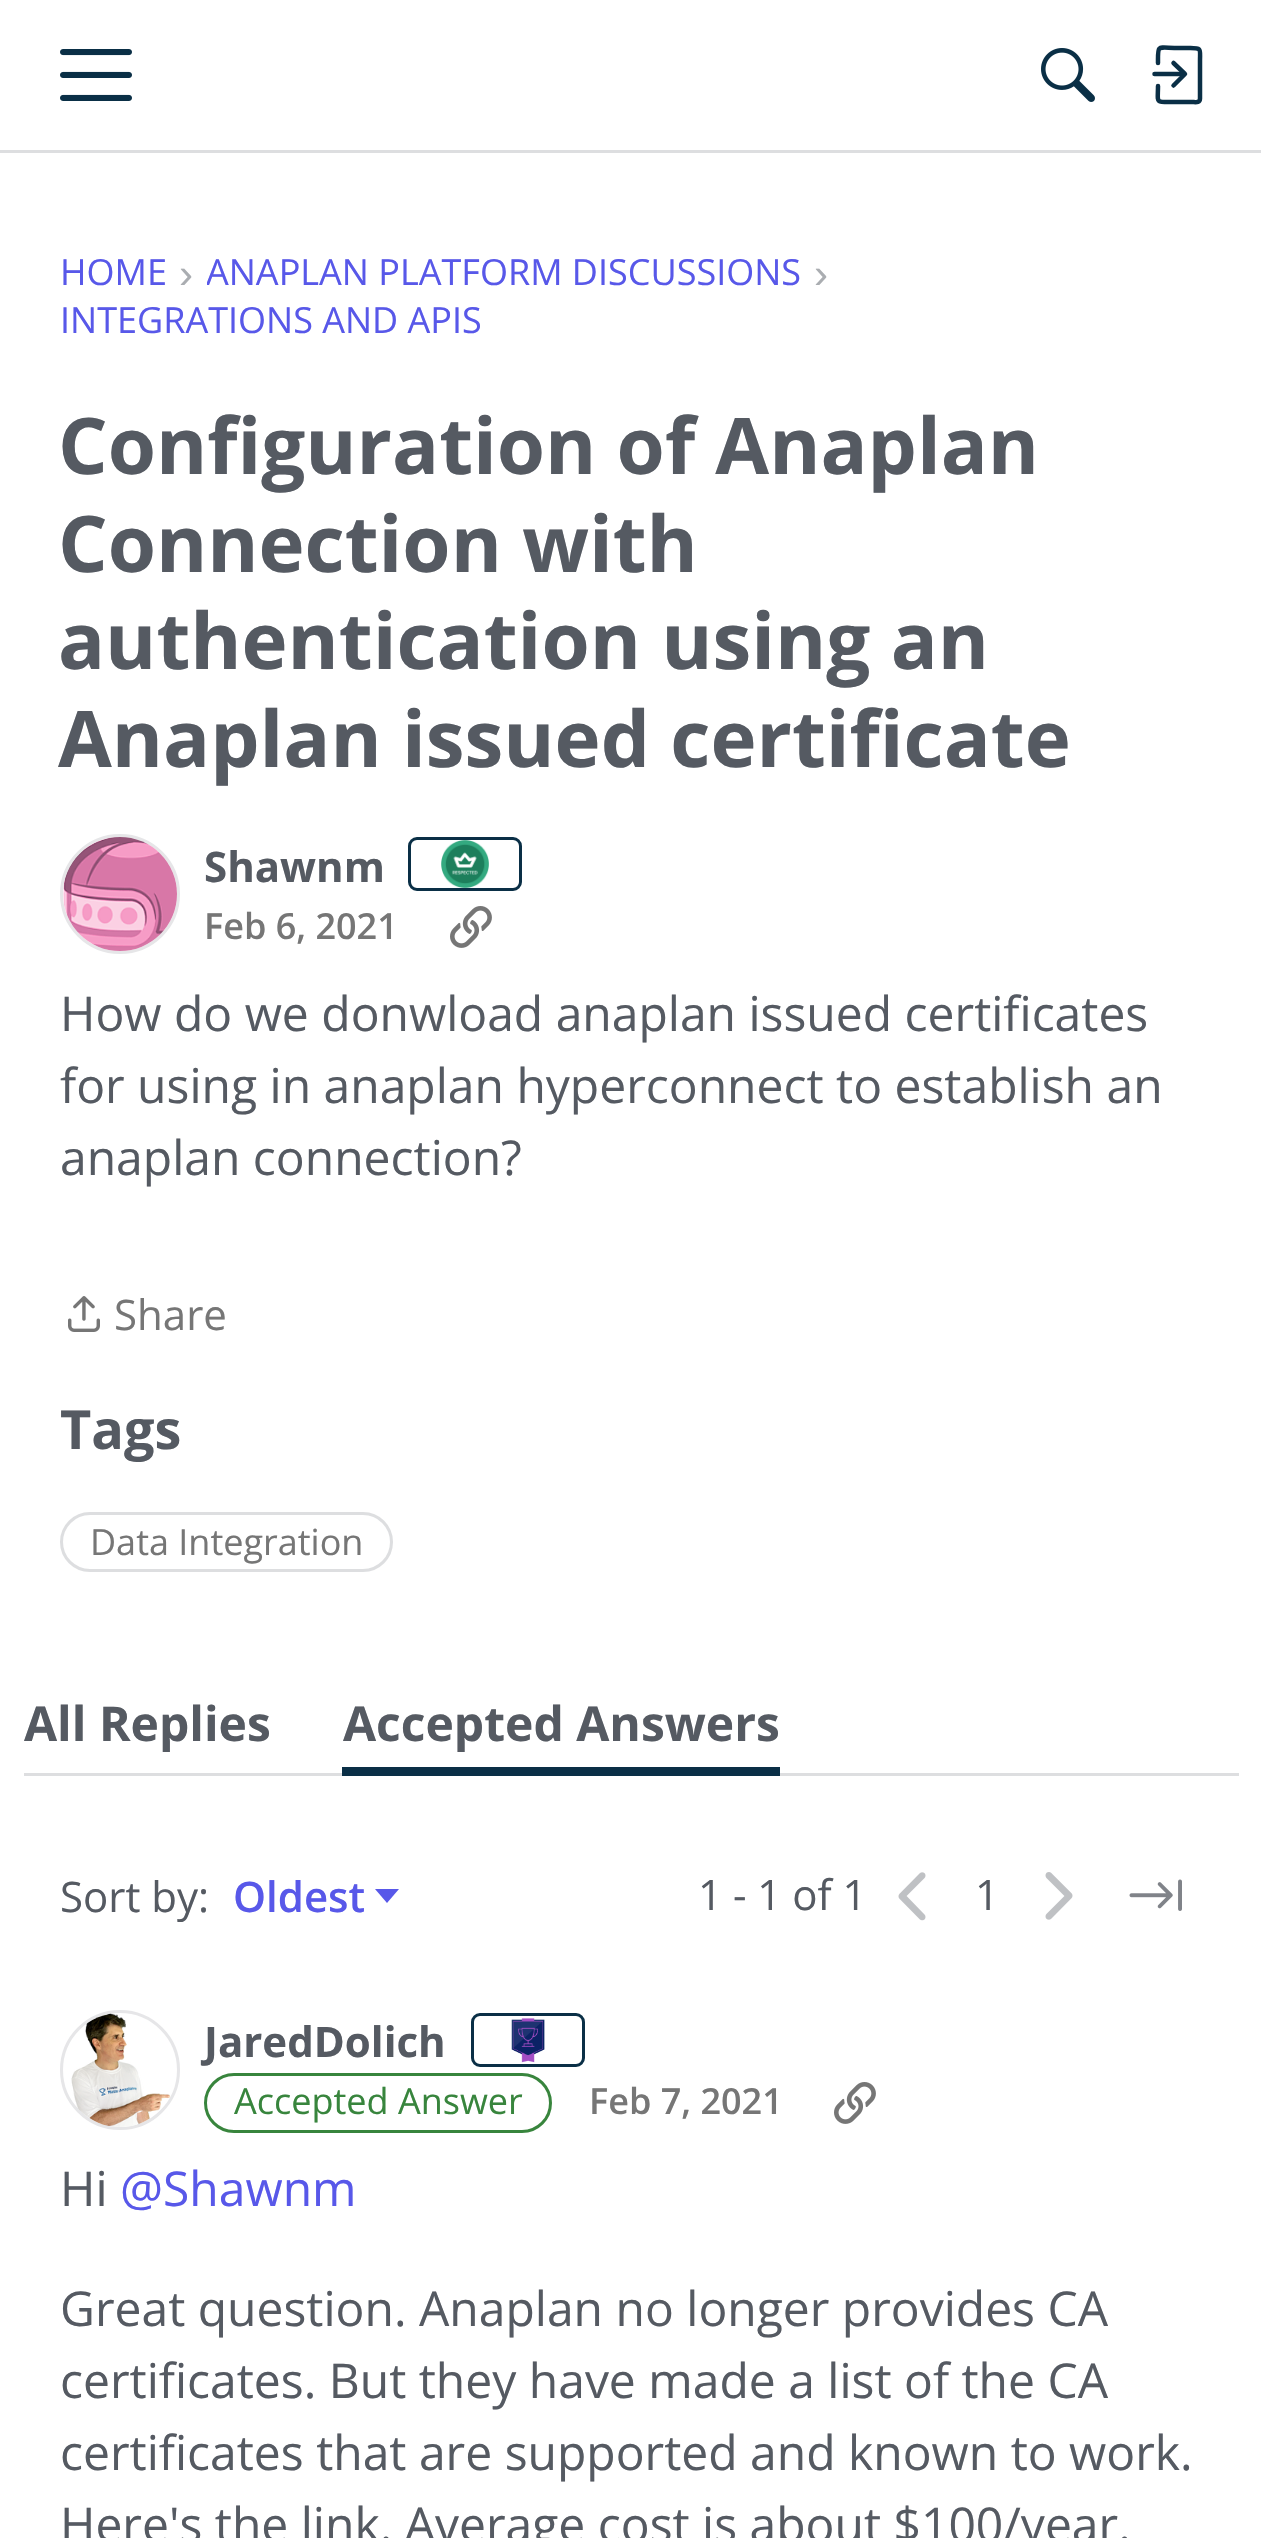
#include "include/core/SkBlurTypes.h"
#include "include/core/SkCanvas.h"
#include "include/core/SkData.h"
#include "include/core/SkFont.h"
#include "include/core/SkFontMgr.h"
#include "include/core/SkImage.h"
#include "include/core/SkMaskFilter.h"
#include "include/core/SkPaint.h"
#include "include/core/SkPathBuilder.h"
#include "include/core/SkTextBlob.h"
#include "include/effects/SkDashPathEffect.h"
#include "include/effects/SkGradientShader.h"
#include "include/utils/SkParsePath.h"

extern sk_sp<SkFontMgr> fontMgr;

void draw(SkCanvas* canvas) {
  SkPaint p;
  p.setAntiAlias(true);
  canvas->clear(SK_ColorWHITE);
  p.setColor(SkColorSetRGB(221, 222, 224));
  canvas->drawRect(SkRect::MakeLTRB(0, 150, 1261, 153), p);
  canvas->drawImageRect(SkImages::DeferredFromEncodedData(SkData::MakeFromFileName("images/1.png")), SkRect::MakeLTRB(60, 49, 132, 101), SkSamplingOptions());
  canvas->drawImageRect(SkImages::DeferredFromEncodedData(SkData::MakeFromFileName("images/2.png")), SkRect::MakeLTRB(1041, 48, 1095, 102), SkSamplingOptions());
  p.setStyle(SkPaint::kStroke_Style);
  p.setStrokeWidth(4.5f);
  p.setStrokeCap(SkPaint::kRound_Cap);
  p.setStrokeJoin(SkPaint::kRound_Join);
  p.setColor(SkColorSetRGB(10, 47, 70));
  canvas->drawPath(SkPathBuilder().moveTo(1173.5f, 85.5f).lineTo(1185, 74).lineTo(1173.5f, 63).detach(), p);
  p.setStrokeJoin(SkPaint::kMiter_Join);
  canvas->drawPath(SkPathBuilder().moveTo(1184, 74).lineTo(1154.5f, 74).detach(), p);
  p.setStrokeJoin(SkPaint::kRound_Join);
  canvas->drawPath(SkPathBuilder().moveTo(1158, 63).cubicTo(1158, 43.5f, 1156.5f, 48, 1179, 48).lineTo(1190.5f, 48).cubicTo(1202, 48, 1200, 49, 1200, 60.5f).lineTo(1200, 98.5f).cubicTo(1200, 103.5f, 1195, 102, 1191.5f, 102).lineTo(1173.5f, 102).cubicTo(1154.5f, 102, 1158, 103.5f, 1158, 86).detach(), p);
  p.setStrokeWidth(3);
  p.setStrokeCap(SkPaint::kButt_Cap);
  p.setStrokeJoin(SkPaint::kMiter_Join);
  p.setColor(SkColorSetRGB(230, 230, 232));
  canvas->drawCircle(120, 894, 58.5f, p);
  canvas->drawImageRect(SkImages::DeferredFromEncodedData(SkData::MakeFromFileName("images/3.png")), SkRect::MakeLTRB(63, 837, 177, 951), SkSamplingOptions());
  p.setColor(SkColorSetRGB(10, 47, 70));
  canvas->drawRoundRect(SkRect::MakeLTRB(409.5f, 838.5f, 520.5f, 889.5f), 7.5f, 7.5f, p);
  canvas->drawImageRect(SkImages::DeferredFromEncodedData(SkData::MakeFromFileName("images/4.png")), SkRect::MakeLTRB(441, 840, 489, 888), SkSamplingOptions());
  canvas->drawImageRect(SkImages::DeferredFromEncodedData(SkData::MakeFromFileName("images/5.png")), SkRect::MakeLTRB(450, 906, 492, 948), SkSamplingOptions());
  canvas->drawImageRect(SkImages::DeferredFromEncodedData(SkData::MakeFromFileName("images/6.png")), SkRect::MakeLTRB(68, 1296, 100, 1332), SkSamplingOptions());
  p.setColor(SkColorSetRGB(221, 222, 224));
  canvas->drawRoundRect(SkRect::MakeLTRB(61.5f, 1513.5f, 391.5f, 1570.5f), 28.5f, 28.5f, p);
  p.setStyle(SkPaint::kFill_Style);
  canvas->drawRect(SkRect::MakeLTRB(24, 1773, 1239, 1776), p);
  p.setColor(SkColorSetRGB(10, 47, 70));
  canvas->drawRect(SkRect::MakeLTRB(342, 1767, 780, 1776), p);
  p.setColor(SkColorSetRGB(88, 88, 233));
  canvas->drawPath(SkPathBuilder().moveTo(375, 1889).lineTo(399, 1889).lineTo(387, 1903).close().detach(), p);
  canvas->drawImageRect(SkImages::DeferredFromEncodedData(SkData::MakeFromFileName("images/7.png")), SkRect::MakeLTRB(898, 1872, 926, 1921), SkSamplingOptions());
  canvas->drawImageRect(SkImages::DeferredFromEncodedData(SkData::MakeFromFileName("images/8.png")), SkRect::MakeLTRB(1045, 1872, 1073, 1920), SkSamplingOptions());
  canvas->drawImageRect(SkImages::DeferredFromEncodedData(SkData::MakeFromFileName("images/9.png")), SkRect::MakeLTRB(1129, 1879, 1182, 1911), SkSamplingOptions());
  p.setStyle(SkPaint::kStroke_Style);
  p.setColor(SkColorSetRGB(230, 230, 232));
  canvas->drawCircle(120, 2070, 58.5f, p);
  canvas->drawImageRect(SkImages::DeferredFromEncodedData(SkData::MakeFromFileName("images/10.png")), SkRect::MakeLTRB(71, 2013, 171, 2127), SkSamplingOptions());
  p.setColor(SkColorSetRGB(10, 47, 70));
  canvas->drawRoundRect(SkRect::MakeLTRB(472.5f, 2014.5f, 583.5f, 2065.5f), 7.5f, 7.5f, p);
  canvas->drawImageRect(SkImages::DeferredFromEncodedData(SkData::MakeFromFileName("images/11.png")), SkRect::MakeLTRB(511, 2018, 545, 2063), SkSamplingOptions());
  p.setColor(SkColorSetRGB(56, 133, 61));
  canvas->drawRoundRect(SkRect::MakeLTRB(205.5f, 2074.5f, 550.5f, 2131.5f), 28.5f, 28.5f, p);
  canvas->drawImageRect(SkImages::DeferredFromEncodedData(SkData::MakeFromFileName("images/5.png")), SkRect::MakeLTRB(834, 2082, 876, 2124), SkSamplingOptions());
  SkFont font1(fontMgr->matchFamilyStyle("Open Sans", SkFontStyle::Normal()), 36);
  font1.setSubpixel(true);
  p.setStyle(SkPaint::kFill_Style);
  p.setColor(SkColorSetRGB(88, 88, 233));
  canvas->drawString("HOME", 60, 285, font1, p);
  SkFont font2(fontMgr->matchFamilyStyle("Liberation Sans", SkFontStyle::Normal()), 42);
  font2.setSubpixel(true);
  p.setColor(SkColorSetRGB(170, 173, 177));
  canvas->drawString("›", 179, 288, font2, p);
  canvas->save();
  canvas->clipRect(SkRect::MakeLTRB(207, 249, 801, 297));
  p.setColor(SkColorSetRGB(88, 88, 233));
  canvas->drawString("ANAPLAN PLATFORM DISCUSSIONS", 206, 285, font1, p);
  canvas->restore();
  p.setColor(SkColorSetRGB(170, 173, 177));
  canvas->drawString("›", 814, 288, font2, p);
  p.setColor(SkColorSetRGB(88, 88, 233));
  canvas->drawString("INTEGRATIONS AND APIS", 60, 333, font1, p);
  SkFont font3(fontMgr->matchFamilyStyle("Open Sans", SkFontStyle::Bold()), 78);
  font3.setSubpixel(true);
  p.setColor(SkColorSetRGB(85, 90, 98));
  canvas->drawString("Configuration of Anaplan", 58, 474, font3, p);
  canvas->drawString("Connection with", 58, 572, font3, p);
  canvas->drawString("authentication using an", 58, 669, font3, p);
  canvas->drawString("Anaplan issued certificate", 58, 767, font3, p);
  SkFont font4(fontMgr->matchFamilyStyle("Open Sans", SkFontStyle::Bold()), 42);
  font4.setSubpixel(true);
  canvas->drawString("Shawnm", 204, 882, font4, p);
  SkFont font5(fontMgr->matchFamilyStyle("Open Sans", SkFontStyle(600, SkFontStyle::kNormal_Width, SkFontStyle::kUpright_Slant)), 36);
  font5.setSubpixel(true);
  p.setColor(SkColorSetRGB(118, 118, 118));
  canvas->drawString("Feb 6, 2021", 204, 939, font5, p);
  SkFont font6(fontMgr->matchFamilyStyle("Open Sans", SkFontStyle::Normal()), 48);
  font6.setSubpixel(true);
  p.setColor(SkColorSetRGB(85, 90, 98));
  canvas->drawString("How do we donwload anaplan issued certificates", 60, 1031, font6, p);
  canvas->drawString("for using in anaplan hyperconnect to establish an", 60, 1103, font6, p);
  canvas->drawString("anaplan connection?", 60, 1175, font6, p);
  SkFont font7(fontMgr->matchFamilyStyle("Open Sans", SkFontStyle::Normal()), 42);
  font7.setSubpixel(true);
  p.setColor(SkColorSetRGB(118, 118, 118));
  canvas->drawString("Share", 114, 1330, font7, p);
  SkFont font8(fontMgr->matchFamilyStyle("Open Sans", SkFontStyle::Bold()), 54);
  font8.setSubpixel(true);
  p.setColor(SkColorSetRGB(85, 90, 98));
  canvas->drawString("Tags", 60, 1449, font8, p);
  p.setColor(SkColorSetRGB(118, 118, 118));
  canvas->drawString("Data Integration", 90, 1555, font1, p);
  canvas->save();
  canvas->clipRect(SkRect::MakeLTRB(24, 1695, 270, 1752));
  SkFont font9(fontMgr->matchFamilyStyle("Open Sans", SkFontStyle::Bold()), 48);
  font9.setSubpixel(true);
  p.setColor(SkColorSetRGB(85, 90, 98));
  canvas->drawString("All Replies", 24, 1741, font9, p);
  canvas->restore();
  canvas->save();
  canvas->clipRect(SkRect::MakeLTRB(342, 1695, 780, 1752));
  canvas->drawString("Accepted Answers", 343, 1741, font9, p);
  canvas->restore();
  canvas->drawString("Sort by:", 60, 1912, font7, p);
  SkFont font10(fontMgr->matchFamilyStyle("Open Sans", SkFontStyle(600, SkFontStyle::kNormal_Width, SkFontStyle::kUpright_Slant)), 42);
  font10.setSubpixel(true);
  p.setColor(SkColorSetRGB(88, 88, 233));
  canvas->drawString("Oldest", 233, 1912, font10, p);
  p.setColor(SkColorSetRGB(85, 90, 98));
  canvas->drawString("1 - 1 of 1", 698, 1910, font7, p);
  canvas->drawString("1", 975, 1910, font7, p);
  canvas->drawString("JaredDolich", 204, 2057, font4, p);
  p.setColor(SkColorSetRGB(56, 133, 61));
  canvas->drawString("Accepted Answer", 234, 2114, font1, p);
  p.setColor(SkColorSetRGB(118, 118, 118));
  canvas->drawString("Feb 7, 2021", 589, 2114, font5, p);
  p.setColor(SkColorSetRGB(85, 90, 98));
  canvas->drawString("Hi", 60, 2206, font6, p);
  p.setColor(SkColorSetRGB(88, 88, 233));
  canvas->drawString("@Shawnm", 120, 2206, font6, p);
  p.setColor(SkColorSetRGB(85, 90, 98));
  canvas->drawString("Great question. Anaplan no longer provides CA", 60, 2326, font6, p);
  canvas->drawString("certificates. But they have made a list of the CA", 60, 2398, font6, p);
  canvas->drawString("certificates that are supported and known to work.", 60, 2470, font6, p);
  canvas->drawString("Here's the link. Average cost is about $100/year.", 60, 2542, font6, p);
}
